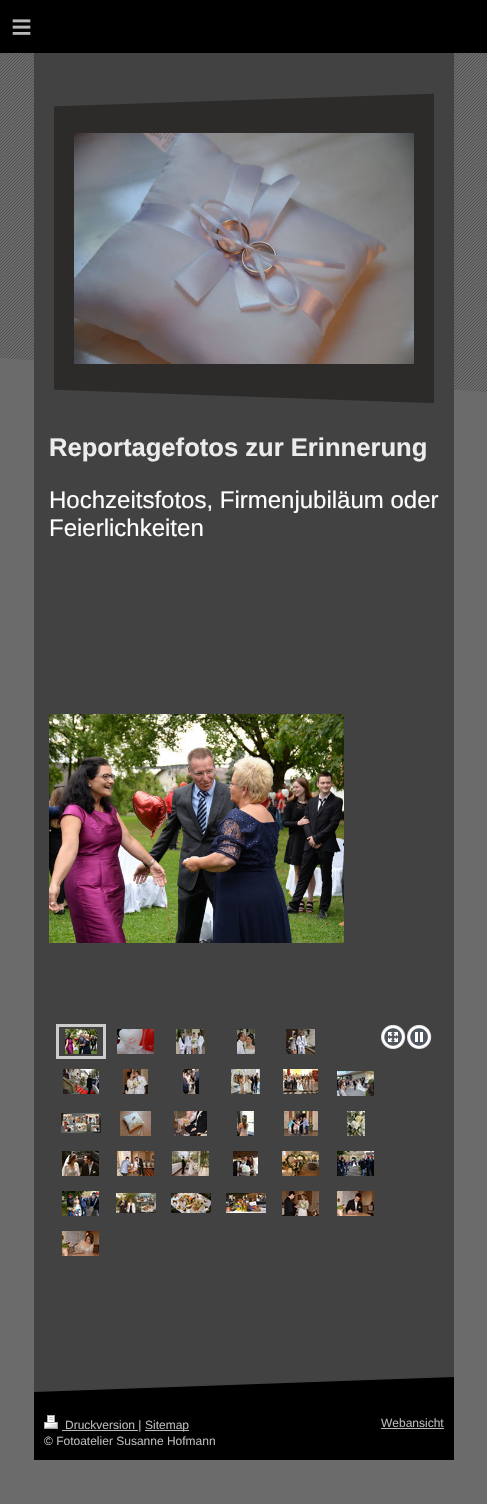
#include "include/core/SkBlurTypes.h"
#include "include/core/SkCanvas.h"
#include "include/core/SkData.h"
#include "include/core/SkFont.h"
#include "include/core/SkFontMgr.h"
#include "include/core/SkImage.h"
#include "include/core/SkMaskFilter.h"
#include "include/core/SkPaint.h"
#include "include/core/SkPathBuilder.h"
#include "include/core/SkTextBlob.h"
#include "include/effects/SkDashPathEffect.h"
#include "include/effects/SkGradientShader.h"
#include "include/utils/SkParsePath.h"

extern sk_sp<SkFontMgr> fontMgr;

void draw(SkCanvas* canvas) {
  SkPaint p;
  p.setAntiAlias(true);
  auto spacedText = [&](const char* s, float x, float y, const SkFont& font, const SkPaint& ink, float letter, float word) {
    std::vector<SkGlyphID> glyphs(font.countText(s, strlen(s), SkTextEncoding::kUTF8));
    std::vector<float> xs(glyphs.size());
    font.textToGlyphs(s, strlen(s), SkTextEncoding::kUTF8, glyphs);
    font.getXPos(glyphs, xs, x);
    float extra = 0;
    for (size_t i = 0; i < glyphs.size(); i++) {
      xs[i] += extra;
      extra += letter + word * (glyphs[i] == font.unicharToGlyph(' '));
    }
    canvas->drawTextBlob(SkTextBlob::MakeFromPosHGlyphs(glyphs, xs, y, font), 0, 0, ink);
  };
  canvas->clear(SkColorSetRGB(107, 107, 107));
  canvas->drawImageRect(SkImages::DeferredFromEncodedData(SkData::MakeFromFileName("images/1.png")), SkRect::MakeLTRB(0, 53, 487, 392), SkSamplingOptions());
  p.setColor(SK_ColorBLACK);
  canvas->drawRect(SkRect::MakeLTRB(0, 0, 487, 53), p);
  p.setColor(SkColorSetRGB(66, 66, 66));
  canvas->drawRect(SkRect::MakeLTRB(34, 53, 454, 1392), p);
  p.setColor(SkColorSetRGB(44, 43, 42));
  canvas->drawRect(SkRect::MakeLTRB(54, 93, 434, 404), p);
  canvas->save();
  canvas->clipRect(SkRect::MakeLTRB(54, 83, 434, 414));
  p.setColor(SkColorSetRGB(66, 66, 66));
  canvas->drawPath(SkPathBuilder().moveTo(34, 63).lineTo(452, 49).lineTo(453, 93).lineTo(35, 107).close().detach(), p);
  canvas->restore();
  canvas->drawImageRect(SkImages::DeferredFromEncodedData(SkData::MakeFromFileName("images/2.png")), SkRect::MakeLTRB(74, 133, 414, 364), SkSamplingOptions());
  canvas->save();
  canvas->clipRect(SkRect::MakeLTRB(54, 83, 434, 414));
  canvas->drawPath(SkPathBuilder().moveTo(35, 389).lineTo(453, 404).lineTo(452, 448).lineTo(34, 433).close().detach(), p);
  canvas->restore();
  canvas->drawImageRect(SkImages::DeferredFromEncodedData(SkData::MakeFromFileName("images/3.png")), SkRect::MakeLTRB(49, 714, 344, 943), SkSamplingOptions());
  p.setStyle(SkPaint::kStroke_Style);
  p.setStrokeWidth(3);
  p.setColor(SkColorSetRGB(204, 204, 204));
  canvas->drawRect(SkRect::MakeLTRB(57.5f, 1025.5f, 104.5f, 1057.5f), p);
  canvas->drawImageRect(SkImages::DeferredFromEncodedData(SkData::MakeFromFileName("images/4.png")), SkRect::MakeLTRB(65, 1029, 97, 1054), SkSamplingOptions());
  canvas->drawImageRect(SkImages::DeferredFromEncodedData(SkData::MakeFromFileName("images/5.png")), SkRect::MakeLTRB(117, 1029, 154, 1054), SkSamplingOptions());
  canvas->drawImageRect(SkImages::DeferredFromEncodedData(SkData::MakeFromFileName("images/6.png")), SkRect::MakeLTRB(176, 1029, 205, 1054), SkSamplingOptions());
  canvas->drawImageRect(SkImages::DeferredFromEncodedData(SkData::MakeFromFileName("images/7.png")), SkRect::MakeLTRB(237, 1029, 255, 1054), SkSamplingOptions());
  canvas->drawImageRect(SkImages::DeferredFromEncodedData(SkData::MakeFromFileName("images/8.png")), SkRect::MakeLTRB(286, 1029, 315, 1054), SkSamplingOptions());
  canvas->drawImageRect(SkImages::DeferredFromEncodedData(SkData::MakeFromFileName("images/9.png")), SkRect::MakeLTRB(381, 1024, 406, 1049), SkSamplingOptions());
  canvas->drawImageRect(SkImages::DeferredFromEncodedData(SkData::MakeFromFileName("images/10.png")), SkRect::MakeLTRB(407, 1024, 432, 1049), SkSamplingOptions());
  canvas->drawImageRect(SkImages::DeferredFromEncodedData(SkData::MakeFromFileName("images/11.png")), SkRect::MakeLTRB(63, 1069, 99, 1094), SkSamplingOptions());
  canvas->drawImageRect(SkImages::DeferredFromEncodedData(SkData::MakeFromFileName("images/12.png")), SkRect::MakeLTRB(123, 1069, 148, 1094), SkSamplingOptions());
  canvas->drawImageRect(SkImages::DeferredFromEncodedData(SkData::MakeFromFileName("images/13.png")), SkRect::MakeLTRB(183, 1069, 199, 1094), SkSamplingOptions());
  canvas->drawImageRect(SkImages::DeferredFromEncodedData(SkData::MakeFromFileName("images/14.png")), SkRect::MakeLTRB(231, 1069, 260, 1094), SkSamplingOptions());
  canvas->drawImageRect(SkImages::DeferredFromEncodedData(SkData::MakeFromFileName("images/15.png")), SkRect::MakeLTRB(283, 1069, 318, 1094), SkSamplingOptions());
  canvas->drawImageRect(SkImages::DeferredFromEncodedData(SkData::MakeFromFileName("images/16.png")), SkRect::MakeLTRB(337, 1071, 374, 1096), SkSamplingOptions());
  canvas->drawImageRect(SkImages::DeferredFromEncodedData(SkData::MakeFromFileName("images/17.png")), SkRect::MakeLTRB(61, 1113, 101, 1133), SkSamplingOptions());
  canvas->drawImageRect(SkImages::DeferredFromEncodedData(SkData::MakeFromFileName("images/18.png")), SkRect::MakeLTRB(120, 1111, 151, 1136), SkSamplingOptions());
  canvas->drawImageRect(SkImages::DeferredFromEncodedData(SkData::MakeFromFileName("images/19.png")), SkRect::MakeLTRB(174, 1111, 207, 1136), SkSamplingOptions());
  canvas->drawImageRect(SkImages::DeferredFromEncodedData(SkData::MakeFromFileName("images/20.png")), SkRect::MakeLTRB(237, 1111, 254, 1136), SkSamplingOptions());
  canvas->drawImageRect(SkImages::DeferredFromEncodedData(SkData::MakeFromFileName("images/21.png")), SkRect::MakeLTRB(284, 1111, 318, 1136), SkSamplingOptions());
  canvas->drawImageRect(SkImages::DeferredFromEncodedData(SkData::MakeFromFileName("images/22.png")), SkRect::MakeLTRB(347, 1111, 365, 1136), SkSamplingOptions());
  canvas->drawImageRect(SkImages::DeferredFromEncodedData(SkData::MakeFromFileName("images/23.png")), SkRect::MakeLTRB(62, 1151, 99, 1176), SkSamplingOptions());
  canvas->drawImageRect(SkImages::DeferredFromEncodedData(SkData::MakeFromFileName("images/24.png")), SkRect::MakeLTRB(117, 1151, 154, 1176), SkSamplingOptions());
  canvas->drawImageRect(SkImages::DeferredFromEncodedData(SkData::MakeFromFileName("images/25.png")), SkRect::MakeLTRB(172, 1151, 209, 1176), SkSamplingOptions());
  canvas->drawImageRect(SkImages::DeferredFromEncodedData(SkData::MakeFromFileName("images/26.png")), SkRect::MakeLTRB(233, 1151, 258, 1176), SkSamplingOptions());
  canvas->drawImageRect(SkImages::DeferredFromEncodedData(SkData::MakeFromFileName("images/27.png")), SkRect::MakeLTRB(282, 1151, 319, 1176), SkSamplingOptions());
  canvas->drawImageRect(SkImages::DeferredFromEncodedData(SkData::MakeFromFileName("images/28.png")), SkRect::MakeLTRB(337, 1151, 374, 1176), SkSamplingOptions());
  canvas->drawImageRect(SkImages::DeferredFromEncodedData(SkData::MakeFromFileName("images/29.png")), SkRect::MakeLTRB(62, 1191, 99, 1216), SkSamplingOptions());
  canvas->drawImageRect(SkImages::DeferredFromEncodedData(SkData::MakeFromFileName("images/30.png")), SkRect::MakeLTRB(116, 1193, 156, 1213), SkSamplingOptions());
  canvas->drawImageRect(SkImages::DeferredFromEncodedData(SkData::MakeFromFileName("images/31.png")), SkRect::MakeLTRB(171, 1193, 211, 1213), SkSamplingOptions());
  canvas->drawImageRect(SkImages::DeferredFromEncodedData(SkData::MakeFromFileName("images/32.png")), SkRect::MakeLTRB(226, 1193, 266, 1213), SkSamplingOptions());
  canvas->drawImageRect(SkImages::DeferredFromEncodedData(SkData::MakeFromFileName("images/33.png")), SkRect::MakeLTRB(282, 1191, 319, 1216), SkSamplingOptions());
  canvas->drawImageRect(SkImages::DeferredFromEncodedData(SkData::MakeFromFileName("images/34.png")), SkRect::MakeLTRB(337, 1191, 374, 1216), SkSamplingOptions());
  canvas->drawImageRect(SkImages::DeferredFromEncodedData(SkData::MakeFromFileName("images/35.png")), SkRect::MakeLTRB(62, 1231, 99, 1256), SkSamplingOptions());
  p.setStyle(SkPaint::kFill_Style);
  p.setColor(SK_ColorBLACK);
  canvas->drawPath(SkPathBuilder().moveTo(34, 1392).lineTo(454, 1377).lineTo(454, 1417).lineTo(34, 1432).close().detach(), p);
  canvas->drawRect(SkRect::MakeLTRB(34, 1417, 454, 1460), p);
  canvas->drawImageRect(SkImages::DeferredFromEncodedData(SkData::MakeFromFileName("images/36.png")), SkRect::MakeLTRB(44, 1415, 58, 1429), SkSamplingOptions());
  p.setColor(SkColorSetRGB(184, 184, 184));
  canvas->drawRect(SkRect::MakeLTRB(62, 1430, 138, 1431), p);
  canvas->drawRect(SkRect::MakeLTRB(145, 1430, 189, 1431), p);
  canvas->drawRect(SkRect::MakeLTRB(381, 1428, 444, 1429), p);
  SkFont font1(fontMgr->matchFamilyStyle("Liberation Sans", SkFontStyle::Normal()), 36);
  font1.setSubpixel(true);
  spacedText("≡", 11, 39, font1, p, 10, 0);
  SkFont font2(fontMgr->matchFamilyStyle("Liberation Sans", SkFontStyle::Bold()), 25.6f);
  font2.setSubpixel(true);
  p.setColor(SkColorSetRGB(236, 236, 236));
  canvas->drawString("Reportagefotos zur Erinnerung", 49, 456, font2, p);
  SkFont font3(fontMgr->matchFamilyStyle("Liberation Sans", SkFontStyle::Normal()), 24);
  font3.setSubpixel(true);
  p.setColor(SK_ColorWHITE);
  canvas->drawString("Hochzeitsfotos, Firmenjubiläum oder", 49, 508, font3, p);
  canvas->drawString("Feierlichkeiten", 49, 536, font3, p);
  SkFont font4(fontMgr->matchFamilyStyle("Liberation Sans", SkFontStyle::Normal()), 12);
  font4.setSubpixel(true);
  p.setColor(SkColorSetRGB(184, 184, 184));
  canvas->drawString("Druckversion |", 65, 1429, font4, p);
  canvas->drawString("Sitemap", 145, 1429, font4, p);
  canvas->save();
  canvas->clipRect(SkRect::MakeLTRB(44, 1415, 444, 1450));
  canvas->drawString("© Fotoatelier Susanne Hofmann", 44, 1445, font4, p);
  canvas->restore();
  canvas->drawString("Webansicht", 381, 1427, font4, p);
}
